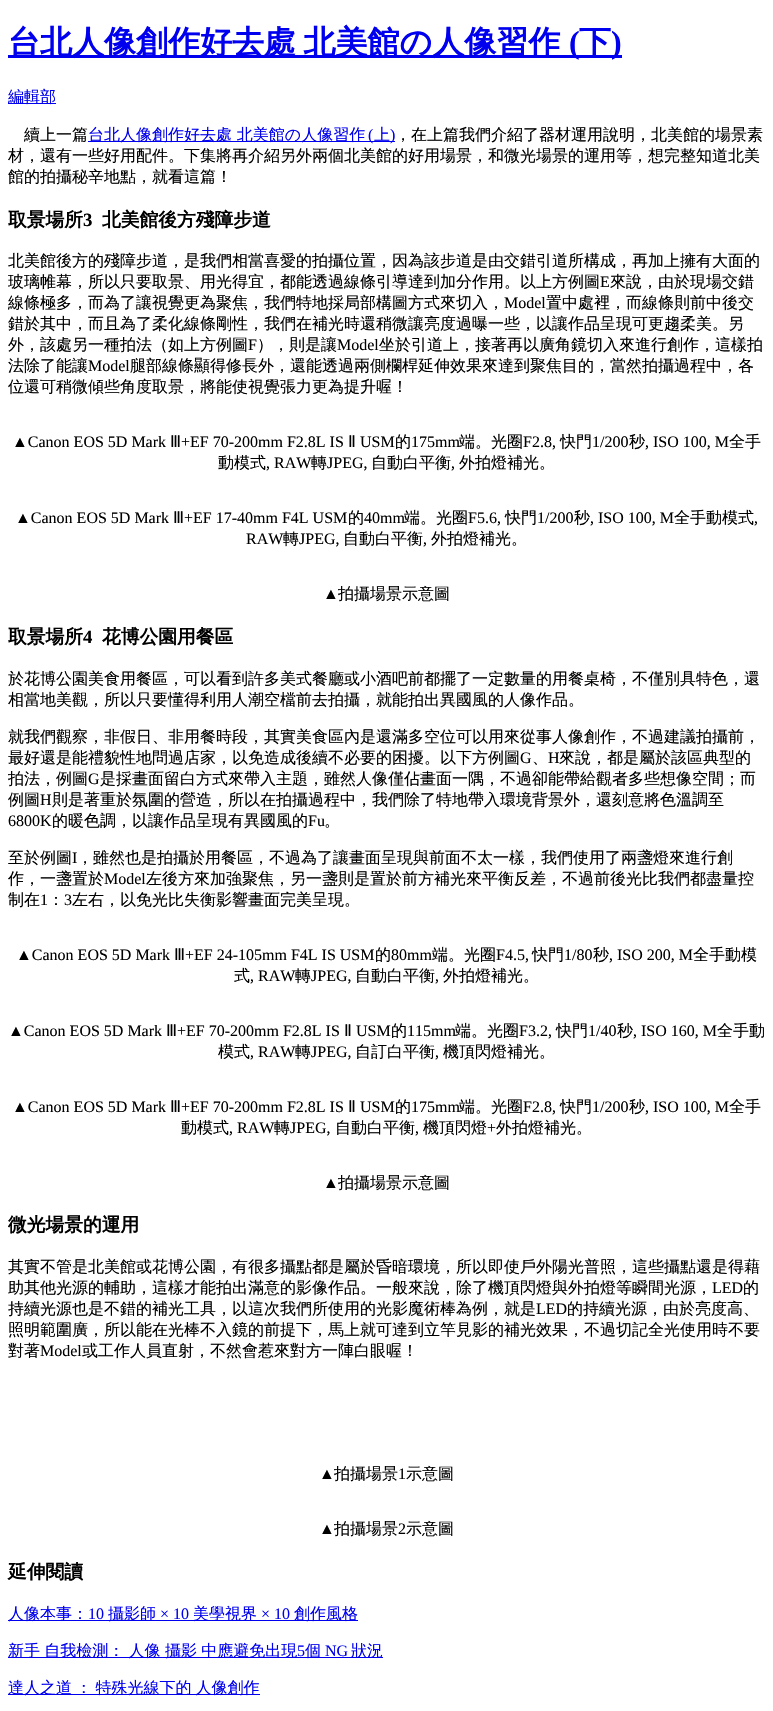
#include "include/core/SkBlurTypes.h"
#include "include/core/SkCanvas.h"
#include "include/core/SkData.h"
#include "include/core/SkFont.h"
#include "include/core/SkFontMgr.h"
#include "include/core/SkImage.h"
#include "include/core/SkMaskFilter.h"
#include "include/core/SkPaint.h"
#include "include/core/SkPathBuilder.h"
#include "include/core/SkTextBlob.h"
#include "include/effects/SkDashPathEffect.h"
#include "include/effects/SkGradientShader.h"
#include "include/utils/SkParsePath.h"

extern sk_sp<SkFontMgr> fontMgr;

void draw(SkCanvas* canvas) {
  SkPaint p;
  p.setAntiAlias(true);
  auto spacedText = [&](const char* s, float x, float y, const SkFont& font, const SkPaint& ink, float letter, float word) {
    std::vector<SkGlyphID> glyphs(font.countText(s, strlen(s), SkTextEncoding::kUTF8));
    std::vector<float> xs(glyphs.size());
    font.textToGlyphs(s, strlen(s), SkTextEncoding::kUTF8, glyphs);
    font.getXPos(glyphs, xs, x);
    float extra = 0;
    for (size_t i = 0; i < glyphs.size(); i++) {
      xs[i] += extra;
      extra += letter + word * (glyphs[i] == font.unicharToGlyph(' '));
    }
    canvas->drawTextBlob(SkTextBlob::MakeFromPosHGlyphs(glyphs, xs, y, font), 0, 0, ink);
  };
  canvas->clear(SK_ColorWHITE);
  p.setColor(SkColorSetRGB(0, 0, 238));
  canvas->drawRect(SkRect::MakeLTRB(8, 55, 622, 58), p);
  canvas->drawRect(SkRect::MakeLTRB(8, 103, 56, 104), p);
  canvas->drawRect(SkRect::MakeLTRB(88, 141, 395, 142), p);
  canvas->drawRect(SkRect::MakeLTRB(8, 1620, 358, 1621), p);
  canvas->drawRect(SkRect::MakeLTRB(8, 1657, 383, 1658), p);
  canvas->drawRect(SkRect::MakeLTRB(8, 1694, 260, 1695), p);
  SkFont font1(fontMgr->matchFamilyStyle("WenQuanYi Zen Hei", SkFontStyle::Bold()), 32);
  font1.setSubpixel(true);
  spacedText("台北人像創作好去處 北美館の人像習作", 8, 53, font1, p, 0, -2);
  SkFont font2(fontMgr->matchFamilyStyle("Liberation Serif", SkFontStyle::Bold()), 32);
  font2.setSubpixel(true);
  canvas->drawString("(", 569, 53, font2, p);
  canvas->drawString("下", 579, 53, font1, p);
  canvas->drawString(")", 611, 53, font2, p);
  SkFont font3(fontMgr->matchFamilyStyle("WenQuanYi Zen Hei", SkFontStyle(500, SkFontStyle::kNormal_Width, SkFontStyle::kUpright_Slant)), 16);
  font3.setSubpixel(true);
  canvas->drawString("編輯部", 8, 102, font3, p);
  p.setColor(SK_ColorBLACK);
  canvas->drawString("續上一篇", 24, 140, font3, p);
  p.setColor(SkColorSetRGB(0, 0, 238));
  canvas->drawString("台北人像創作好去處 北美館の人像習作", 88, 140, font3, p);
  SkFont font4(fontMgr->matchFamilyStyle("Liberation Serif", SkFontStyle::Normal()), 16);
  font4.setSubpixel(true);
  canvas->drawString("(", 368, 140, font4, p);
  canvas->drawString("上", 374, 140, font3, p);
  canvas->drawString(")", 390, 140, font4, p);
  p.setColor(SK_ColorBLACK);
  canvas->drawString("，在上篇我們介紹了器材運用說明，北美館的場景素", 395, 140, font3, p);
  canvas->drawString("材，還有一些好用配件。下集將再介紹另外兩個北美館的好用場景，和微光場景的運用等，想完整知道北美", 8, 161, font3, p);
  canvas->drawString("館的拍攝秘辛地點，就看這篇！", 8, 182, font3, p);
  SkFont font5(fontMgr->matchFamilyStyle("WenQuanYi Zen Hei", SkFontStyle::Bold()), 18.75f);
  font5.setSubpixel(true);
  canvas->drawString("取景場所", 8, 226, font5, p);
  SkFont font6(fontMgr->matchFamilyStyle("Liberation Serif", SkFontStyle::Bold()), 18.75f);
  font6.setSubpixel(true);
  canvas->drawString("3", 83, 226, font6, p);
  canvas->drawString("北美館後方殘障步道", 102, 226, font5, p);
  canvas->drawString("北美館後方的殘障步道，是我們相當喜愛的拍攝位置，因為該步道是由交錯引道所構成，再加上擁有大面的", 8, 266, font3, p);
  canvas->drawString("玻璃帷幕，所以只要取景、用光得宜，都能透過線條引導達到加分作用。以上方例圖", 8, 287, font3, p);
  canvas->drawString("E", 600, 287, font4, p);
  canvas->drawString("來說，由於現場交錯", 610, 287, font3, p);
  canvas->drawString("線條極多，而為了讓視覺更為聚焦，我們特地採局部構圖方式來切入，", 8, 308, font3, p);
  canvas->drawString("Model", 504, 308, font4, p);
  canvas->drawString("置中處裡，而線條則前中後交", 546, 308, font3, p);
  canvas->drawString("錯於其中，而且為了柔化線條剛性，我們在補光時還稍微讓亮度過曝一些，以讓作品呈現可更趨柔美。另", 8, 329, font3, p);
  canvas->drawString("外，該處另一種拍法（如上方例圖", 8, 350, font3, p);
  canvas->drawString("F", 248, 350, font4, p);
  canvas->drawString("），則是讓", 257, 350, font3, p);
  canvas->drawString("Model", 337, 350, font4, p);
  canvas->drawString("坐於引道上，接著再以廣角鏡切入來進行創作，這樣拍", 379, 350, font3, p);
  canvas->drawString("法除了能讓", 8, 371, font3, p);
  canvas->drawString("Model", 88, 371, font4, p);
  canvas->drawString("腿部線條顯得修長外，還能透過兩側欄桿延伸效果來達到聚焦目的，當然拍攝過程中，各", 130, 371, font3, p);
  canvas->drawString("位還可稍微傾些角度取景，將能使視覺張力更為提升喔！", 8, 392, font3, p);
  canvas->drawString("▲Canon EOS 5D Mark", 12, 447, font4, p);
  SkFont font7(fontMgr->matchFamilyStyle("DejaVu Sans", SkFontStyle::Normal()), 16);
  font7.setSubpixel(true);
  canvas->drawString("Ⅲ", 170, 447, font7, p);
  canvas->drawString("+EF 70-200mm F2.8L IS", 181, 447, font4, p);
  canvas->drawString("Ⅱ", 348, 447, font7, p);
  canvas->drawString("USM", 360, 447, font4, p);
  canvas->drawString("的", 395, 447, font3, p);
  canvas->drawString("175mm", 411, 447, font4, p);
  canvas->drawString("端。光圈", 459, 447, font3, p);
  canvas->drawString("F2.8,", 523, 447, font4, p);
  canvas->drawString("快門", 560, 447, font3, p);
  canvas->drawString("1/200", 592, 447, font4, p);
  canvas->drawString("秒", 629, 447, font3, p);
  canvas->drawString(", ISO 100, M", 645, 447, font4, p);
  canvas->drawString("全手", 729, 447, font3, p);
  canvas->drawString("動模式", 218, 468, font3, p);
  canvas->drawString(", RAW", 266, 468, font4, p);
  canvas->drawString("轉", 311, 468, font3, p);
  canvas->drawString("JPEG,", 327, 468, font4, p);
  canvas->drawString("自動白平衡", 371, 468, font3, p);
  canvas->drawString(",", 451, 468, font4, p);
  canvas->drawString("外拍燈補光。", 459, 468, font3, p);
  canvas->drawString("▲Canon EOS 5D Mark", 15, 523, font4, p);
  canvas->drawString("Ⅲ", 173, 523, font7, p);
  canvas->drawString("+EF 17-40mm F4L USM", 184, 523, font4, p);
  canvas->drawString("的", 348, 523, font3, p);
  canvas->drawString("40mm", 364, 523, font4, p);
  canvas->drawString("端。光圈", 404, 523, font3, p);
  canvas->drawString("F5.6,", 468, 523, font4, p);
  canvas->drawString("快門", 505, 523, font3, p);
  canvas->drawString("1/200", 537, 523, font4, p);
  canvas->drawString("秒", 574, 523, font3, p);
  canvas->drawString(", ISO 100, M", 590, 523, font4, p);
  canvas->drawString("全手動模式", 674, 523, font3, p);
  canvas->drawString(",", 754, 523, font4, p);
  canvas->drawString("RAW", 246, 544, font4, p);
  canvas->drawString("轉", 283, 544, font3, p);
  canvas->drawString("JPEG,", 299, 544, font4, p);
  canvas->drawString("自動白平衡", 343, 544, font3, p);
  canvas->drawString(",", 423, 544, font4, p);
  canvas->drawString("外拍燈補光。", 431, 544, font3, p);
  canvas->drawString("▲", 323, 599, font4, p);
  canvas->drawString("拍攝場景示意圖", 338, 599, font3, p);
  canvas->drawString("取景場所", 8, 643, font5, p);
  canvas->drawString("4", 83, 643, font6, p);
  canvas->drawString("花博公園用餐區", 102, 643, font5, p);
  canvas->drawString("於花博公園美食用餐區，可以看到許多美式餐廳或小酒吧前都擺了一定數量的用餐桌椅，不僅別具特色，還", 8, 684, font3, p);
  canvas->drawString("相當地美觀，所以只要懂得利用人潮空檔前去拍攝，就能拍出異國風的人像作品。", 8, 705, font3, p);
  canvas->drawString("就我們觀察，非假日、非用餐時段，其實美食區內是還滿多空位可以用來從事人像創作，不過建議拍攝前，", 8, 742, font3, p);
  canvas->drawString("最好還是能禮貌性地問過店家，以免造成後續不必要的困擾。以下方例圖", 8, 763, font3, p);
  canvas->drawString("G", 520, 763, font4, p);
  canvas->drawString("、", 532, 763, font3, p);
  canvas->drawString("H", 548, 763, font4, p);
  canvas->drawString("來說，都是屬於該區典型的", 559, 763, font3, p);
  canvas->drawString("拍法，例圖", 8, 784, font3, p);
  canvas->drawString("G", 88, 784, font4, p);
  canvas->drawString("是採畫面留白方式來帶入主題，雖然人像僅佔畫面一隅，不過卻能帶給觀者多些想像空間；而", 100, 784, font3, p);
  canvas->drawString("例圖", 8, 805, font3, p);
  canvas->drawString("H", 40, 805, font4, p);
  canvas->drawString("則是著重於氛圍的營造，所以在拍攝過程中，我們除了特地帶入環境背景外，還刻意將色溫調至", 52, 805, font3, p);
  canvas->drawString("6800K", 8, 826, font4, p);
  canvas->drawString("的暖色調，以讓作品呈現有異國風的", 52, 826, font3, p);
  canvas->drawString("Fu", 308, 826, font4, p);
  canvas->drawString("。", 324, 826, font3, p);
  canvas->drawString("至於例圖", 8, 863, font3, p);
  canvas->drawString("I", 72, 863, font4, p);
  canvas->drawString("，雖然也是拍攝於用餐區，不過為了讓畫面呈現與前面不太一樣，我們使用了兩盞燈來進行創", 77, 863, font3, p);
  canvas->drawString("作，一盞置於", 8, 884, font3, p);
  canvas->drawString("Model", 104, 884, font4, p);
  canvas->drawString("左後方來加強聚焦，另一盞則是置於前方補光來平衡反差，不過前後光比我們都盡量控", 146, 884, font3, p);
  canvas->drawString("制在", 8, 905, font3, p);
  canvas->drawString("1", 40, 905, font4, p);
  canvas->drawString("：", 48, 905, font3, p);
  canvas->drawString("3", 64, 905, font4, p);
  canvas->drawString("左右，以免光比失衡影響畫面完美呈現。", 72, 905, font3, p);
  canvas->drawString("▲Canon EOS 5D Mark", 16, 960, font4, p);
  canvas->drawString("Ⅲ", 174, 960, font7, p);
  canvas->drawString("+EF 24-105mm F4L IS USM", 185, 960, font4, p);
  canvas->drawString("的", 375, 960, font3, p);
  canvas->drawString("80mm", 391, 960, font4, p);
  canvas->drawString("端。光圈", 432, 960, font3, p);
  canvas->drawString("F4.5,", 496, 960, font4, p);
  canvas->drawString("快門", 532, 960, font3, p);
  canvas->drawString("1/80", 564, 960, font4, p);
  canvas->drawString("秒", 593, 960, font3, p);
  canvas->drawString(", ISO 200, M", 609, 960, font4, p);
  canvas->drawString("全手動模", 693, 960, font3, p);
  canvas->drawString("式", 234, 981, font3, p);
  canvas->drawString(", RAW", 250, 981, font4, p);
  canvas->drawString("轉", 295, 981, font3, p);
  canvas->drawString("JPEG,", 311, 981, font4, p);
  canvas->drawString("自動白平衡", 355, 981, font3, p);
  canvas->drawString(",", 435, 981, font4, p);
  canvas->drawString("外拍燈補光。", 443, 981, font3, p);
  canvas->drawString("▲Canon EOS 5D Mark", 8, 1036, font4, p);
  canvas->drawString("Ⅲ", 166, 1036, font7, p);
  canvas->drawString("+EF 70-200mm F2.8L IS", 177, 1036, font4, p);
  canvas->drawString("Ⅱ", 344, 1036, font7, p);
  canvas->drawString("USM", 356, 1036, font4, p);
  canvas->drawString("的", 391, 1036, font3, p);
  canvas->drawString("115mm", 407, 1036, font4, p);
  canvas->drawString("端。光圈", 455, 1036, font3, p);
  canvas->drawString("F3.2,", 519, 1036, font4, p);
  canvas->drawString("快門", 556, 1036, font3, p);
  canvas->drawString("1/40", 588, 1036, font4, p);
  canvas->drawString("秒", 617, 1036, font3, p);
  canvas->drawString(", ISO 160, M", 633, 1036, font4, p);
  canvas->drawString("全手動", 717, 1036, font3, p);
  canvas->drawString("模式", 218, 1057, font3, p);
  canvas->drawString(", RAW", 250, 1057, font4, p);
  canvas->drawString("轉", 295, 1057, font3, p);
  canvas->drawString("JPEG,", 311, 1057, font4, p);
  canvas->drawString("自訂白平衡", 355, 1057, font3, p);
  canvas->drawString(",", 435, 1057, font4, p);
  canvas->drawString("機頂閃燈補光。", 443, 1057, font3, p);
  canvas->drawString("▲Canon EOS 5D Mark", 12, 1112, font4, p);
  canvas->drawString("Ⅲ", 170, 1112, font7, p);
  canvas->drawString("+EF 70-200mm F2.8L IS", 181, 1112, font4, p);
  canvas->drawString("Ⅱ", 348, 1112, font7, p);
  canvas->drawString("USM", 360, 1112, font4, p);
  canvas->drawString("的", 395, 1112, font3, p);
  canvas->drawString("175mm", 411, 1112, font4, p);
  canvas->drawString("端。光圈", 459, 1112, font3, p);
  canvas->drawString("F2.8,", 523, 1112, font4, p);
  canvas->drawString("快門", 560, 1112, font3, p);
  canvas->drawString("1/200", 592, 1112, font4, p);
  canvas->drawString("秒", 629, 1112, font3, p);
  canvas->drawString(", ISO 100, M", 645, 1112, font4, p);
  canvas->drawString("全手", 729, 1112, font3, p);
  canvas->drawString("動模式", 181, 1133, font3, p);
  canvas->drawString(", RAW", 229, 1133, font4, p);
  canvas->drawString("轉", 274, 1133, font3, p);
  canvas->drawString("JPEG,", 290, 1133, font4, p);
  canvas->drawString("自動白平衡", 335, 1133, font3, p);
  canvas->drawString("機頂閃燈", 423, 1133, font3, p);
  canvas->drawString("+", 487, 1133, font4, p);
  canvas->drawString("外拍燈補光。", 496, 1133, font3, p);
  canvas->drawString(",", 415, 1133, font4, p);
  canvas->drawString("▲", 323, 1188, font4, p);
  canvas->drawString("拍攝場景示意圖", 338, 1188, font3, p);
  canvas->drawString("微光場景的運用", 8, 1231, font5, p);
  canvas->drawString("其實不管是北美館或花博公園，有很多攝點都是屬於昏暗環境，所以即使戶外陽光普照，這些攝點還是得藉", 8, 1272, font3, p);
  canvas->drawString("助其他光源的輔助，這樣才能拍出滿意的影像作品。一般來說，除了機頂閃燈與外拍燈等瞬間光源，", 8, 1293, font3, p);
  canvas->drawString("LED", 712, 1293, font4, p);
  canvas->drawString("的", 743, 1293, font3, p);
  canvas->drawString("持續光源也是不錯的補光工具，以這次我們所使用的光影魔術棒為例，就是", 8, 1314, font3, p);
  canvas->drawString("LED", 536, 1314, font4, p);
  canvas->drawString("的持續光源，由於亮度高、", 567, 1314, font3, p);
  canvas->drawString("照明範圍廣，所以能在光棒不入鏡的前提下，馬上就可達到立竿見影的補光效果，不過切記全光使用時不要", 8, 1335, font3, p);
  canvas->drawString("對著", 8, 1356, font3, p);
  canvas->drawString("Model", 40, 1356, font4, p);
  canvas->drawString("或工作人員直射，不然會惹來對方一陣白眼喔！", 82, 1356, font3, p);
  canvas->drawString("▲", 319, 1479, font4, p);
  canvas->drawString("拍攝場景", 334, 1479, font3, p);
  canvas->drawString("1", 398, 1479, font4, p);
  canvas->drawString("示意圖", 406, 1479, font3, p);
  canvas->drawString("▲", 319, 1534, font4, p);
  canvas->drawString("拍攝場景", 334, 1534, font3, p);
  canvas->drawString("2", 398, 1534, font4, p);
  canvas->drawString("示意圖", 406, 1534, font3, p);
  canvas->drawString("延伸閱讀", 8, 1578, font5, p);
  p.setColor(SkColorSetRGB(0, 0, 238));
  canvas->drawString("人像本事：", 8, 1619, font3, p);
  canvas->drawString("10", 88, 1619, font4, p);
  canvas->drawString("攝影師", 108, 1619, font3, p);
  canvas->drawString("× 10", 160, 1619, font4, p);
  canvas->drawString("美學視界", 193, 1619, font3, p);
  canvas->drawString("× 10", 261, 1619, font4, p);
  canvas->drawString("創作風格", 294, 1619, font3, p);
  spacedText("新手 自我檢測： 人像 攝影 中應避免出現", 8, 1656, font3, p, 0, -0.5f);
  canvas->drawString("5", 297, 1656, font4, p);
  canvas->drawString("個", 305, 1656, font3, p);
  canvas->drawString("NG", 325, 1656, font4, p);
  canvas->drawString("狀況", 351, 1656, font3, p);
  spacedText("達人之道 ： 特殊光線下的 人像創作", 8, 1693, font3, p, 0, -1);
}
